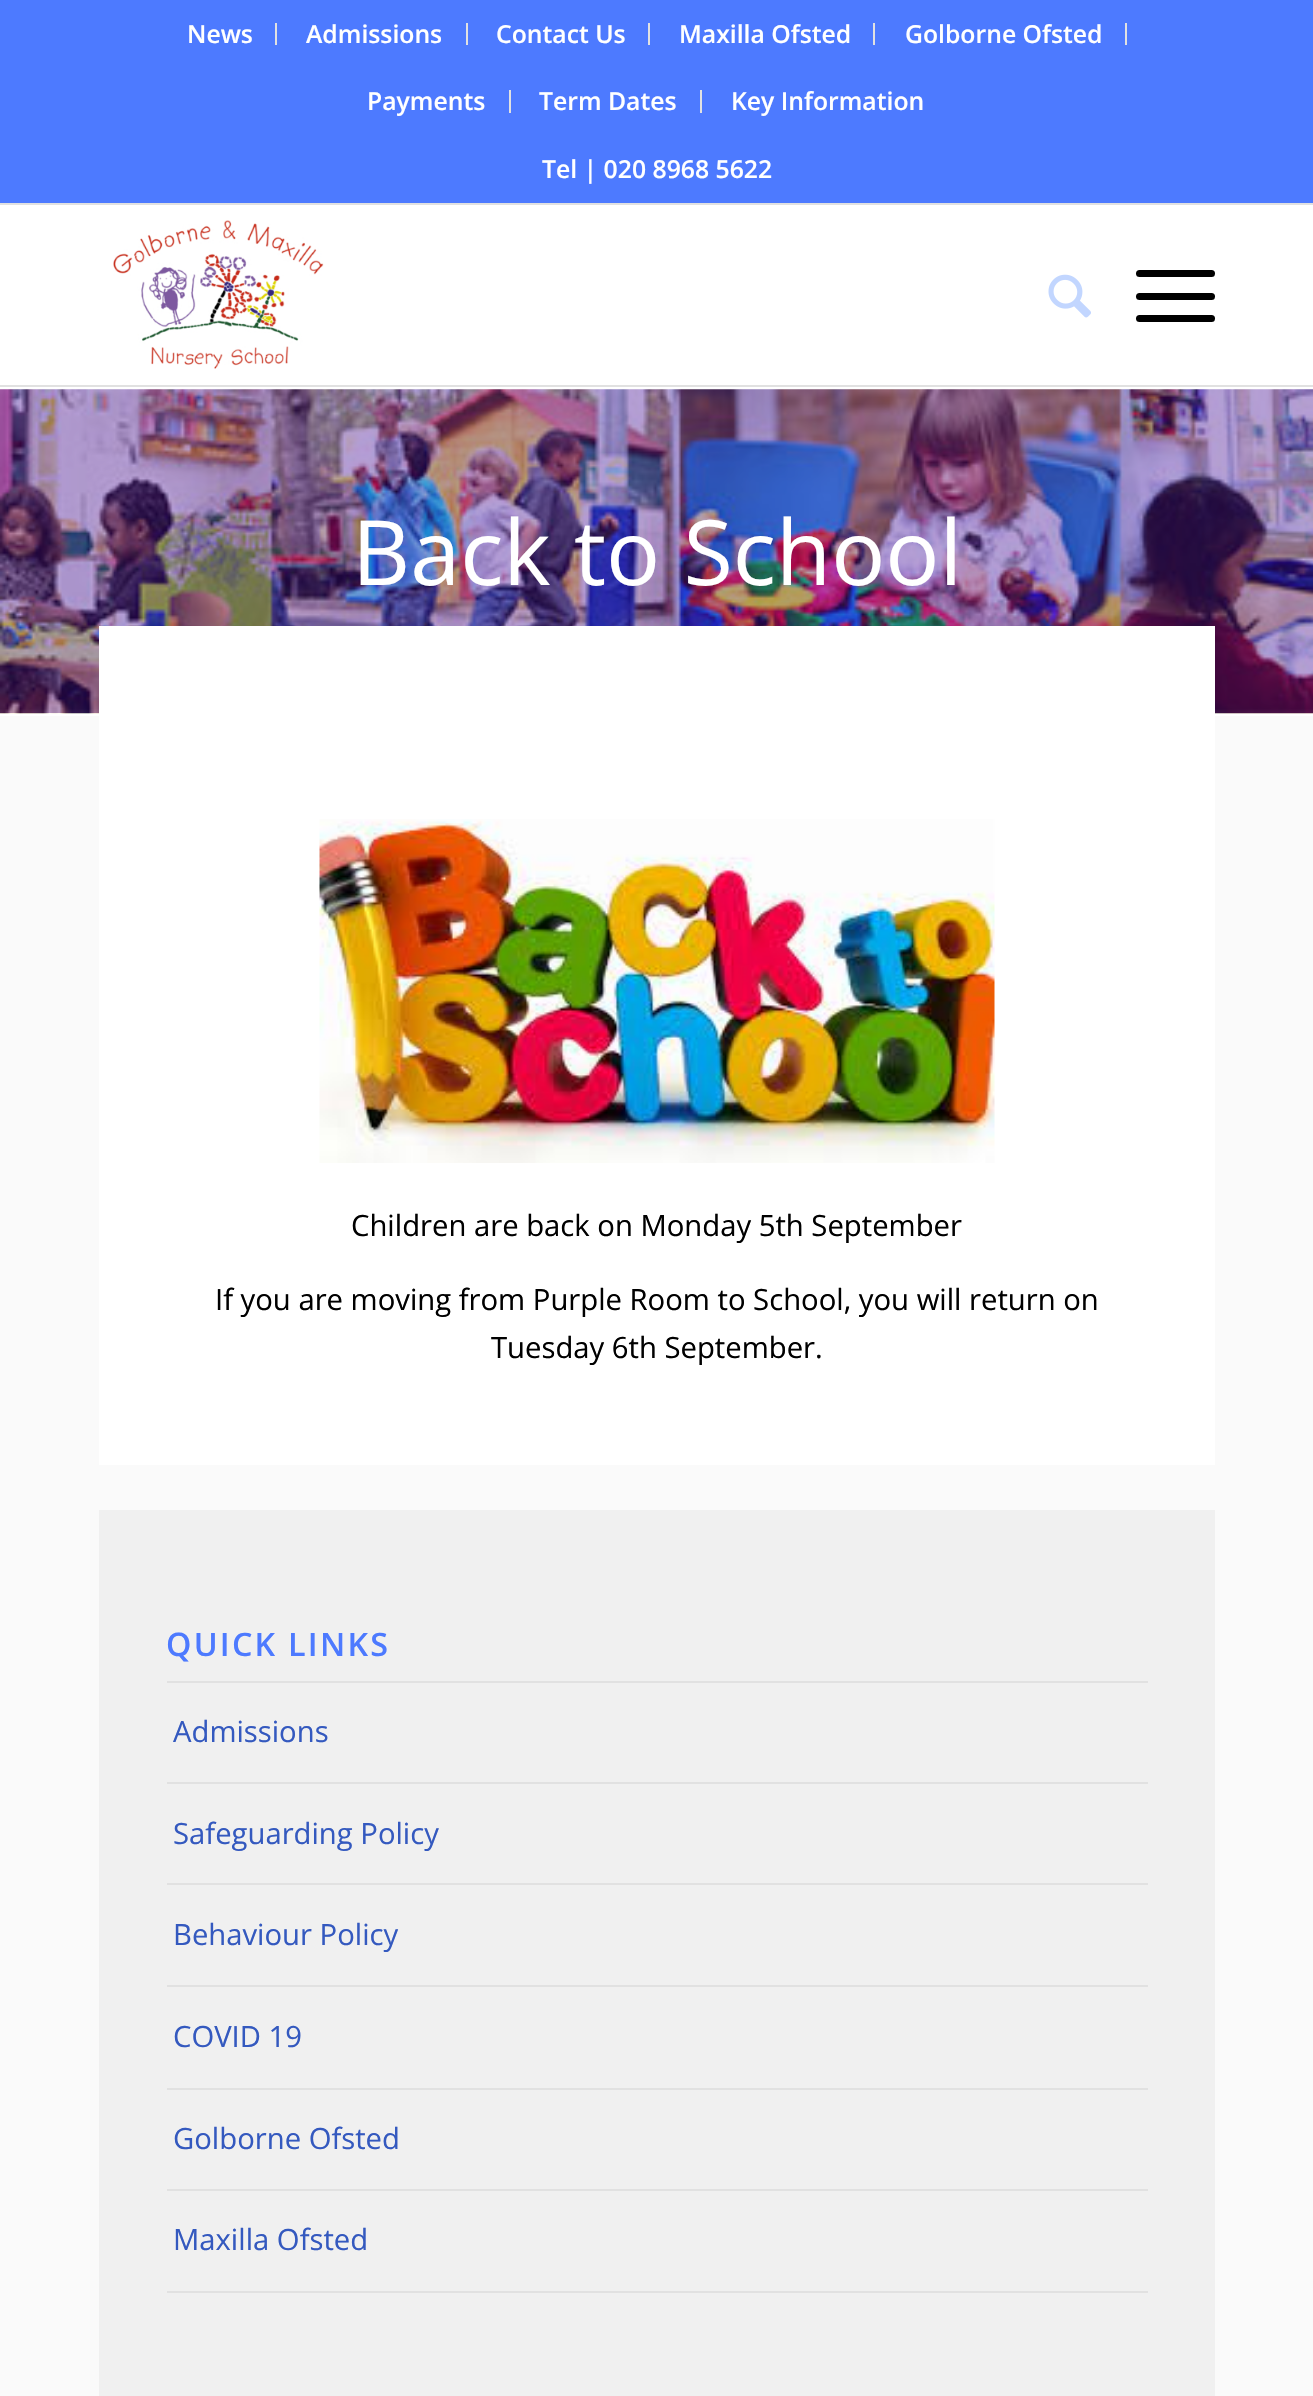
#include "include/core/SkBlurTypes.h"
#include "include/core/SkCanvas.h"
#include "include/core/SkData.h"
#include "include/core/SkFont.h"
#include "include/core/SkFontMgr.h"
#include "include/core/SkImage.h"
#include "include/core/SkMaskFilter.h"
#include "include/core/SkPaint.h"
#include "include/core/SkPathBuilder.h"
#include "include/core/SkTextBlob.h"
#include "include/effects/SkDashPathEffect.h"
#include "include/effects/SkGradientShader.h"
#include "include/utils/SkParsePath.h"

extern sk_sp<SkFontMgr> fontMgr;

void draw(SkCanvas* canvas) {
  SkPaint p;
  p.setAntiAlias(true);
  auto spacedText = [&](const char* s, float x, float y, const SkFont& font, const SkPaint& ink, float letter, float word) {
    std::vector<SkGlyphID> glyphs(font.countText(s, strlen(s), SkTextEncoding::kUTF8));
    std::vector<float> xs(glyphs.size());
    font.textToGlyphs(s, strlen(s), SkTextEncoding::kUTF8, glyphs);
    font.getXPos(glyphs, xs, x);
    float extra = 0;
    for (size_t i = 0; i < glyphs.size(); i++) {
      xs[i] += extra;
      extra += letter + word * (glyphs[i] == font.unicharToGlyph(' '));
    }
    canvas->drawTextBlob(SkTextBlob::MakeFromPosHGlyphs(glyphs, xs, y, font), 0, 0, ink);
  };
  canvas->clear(SK_ColorWHITE);
  p.setColor(SkColorSetRGB(77, 122, 255));
  canvas->drawRect(SkRect::MakeLTRB(0, 0, 1313, 203), p);
  p.setColor(SkColorSetRGB(225, 225, 225));
  canvas->drawRect(SkRect::MakeLTRB(0, 203, 1313, 205), p);
  canvas->drawRect(SkRect::MakeLTRB(275, 23, 277, 45), p);
  canvas->drawRect(SkRect::MakeLTRB(466, 23, 468, 45), p);
  canvas->drawRect(SkRect::MakeLTRB(648, 23, 650, 45), p);
  canvas->drawRect(SkRect::MakeLTRB(873, 23, 875, 45), p);
  canvas->drawRect(SkRect::MakeLTRB(1125, 23, 1127, 45), p);
  canvas->drawRect(SkRect::MakeLTRB(509, 90, 511, 113), p);
  canvas->drawRect(SkRect::MakeLTRB(700, 90, 702, 113), p);
  canvas->drawRect(SkRect::MakeLTRB(0, 385, 1313, 387), p);
  canvas->drawImageRect(SkImages::DeferredFromEncodedData(SkData::MakeFromFileName("images/1.png")), SkRect::MakeLTRB(113, 220, 324, 369), SkSamplingOptions());
  canvas->drawImageRect(SkImages::DeferredFromEncodedData(SkData::MakeFromFileName("images/2.png")), SkRect::MakeLTRB(1048, 274, 1091, 318), SkSamplingOptions());
  p.setColor(SK_ColorBLACK);
  canvas->drawRoundRect(SkRect::MakeLTRB(1136, 293, 1215, 300), 3.5f, 3.5f, p);
  canvas->drawRoundRect(SkRect::MakeLTRB(1136, 270, 1215, 277), 3.5f, 3.5f, p);
  canvas->drawRoundRect(SkRect::MakeLTRB(1136, 315, 1215, 322), 3.5f, 3.5f, p);
  canvas->drawImageRect(SkImages::DeferredFromEncodedData(SkData::MakeFromFileName("images/3.png")), SkRect::MakeLTRB(0, 389, 1313, 714), SkSamplingOptions());
  p.setColor(SkColorSetRGB(250, 250, 250));
  canvas->drawRect(SkRect::MakeLTRB(0, 716, 1313, 2396), p);
  p.setColor(SK_ColorWHITE);
  canvas->drawRect(SkRect::MakeLTRB(99, 626, 1215, 1465), p);
  canvas->drawImageRect(SkImages::DeferredFromEncodedData(SkData::MakeFromFileName("images/4.png")), SkRect::MakeLTRB(319, 819, 995, 1163), SkSamplingOptions());
  p.setColor(SkColorSetRGB(240, 240, 240));
  canvas->drawRect(SkRect::MakeLTRB(99, 1510, 1215, 2396), p);
  p.setColor(SkColorSetRGB(225, 225, 225));
  canvas->drawRect(SkRect::MakeLTRB(167, 1681, 1148, 1683), p);
  canvas->drawRect(SkRect::MakeLTRB(167, 1782, 1148, 1784), p);
  canvas->drawRect(SkRect::MakeLTRB(167, 1883, 1148, 1885), p);
  canvas->drawRect(SkRect::MakeLTRB(167, 1985, 1148, 1987), p);
  canvas->drawRect(SkRect::MakeLTRB(167, 2088, 1148, 2090), p);
  canvas->drawRect(SkRect::MakeLTRB(167, 2189, 1148, 2191), p);
  canvas->drawRect(SkRect::MakeLTRB(167, 2291, 1148, 2293), p);
  SkFont font1(fontMgr->matchFamilyStyle("Open Sans", SkFontStyle(600, SkFontStyle::kNormal_Width, SkFontStyle::kUpright_Slant)), 24.75f);
  font1.setSubpixel(true);
  p.setColor(SK_ColorWHITE);
  canvas->drawString("News", 187, 43, font1, p);
  canvas->drawString("Admissions", 306, 43, font1, p);
  canvas->drawString("Contact Us", 496, 43, font1, p);
  canvas->drawString("Maxilla Ofsted", 679, 43, font1, p);
  canvas->drawString("Golborne Ofsted", 905, 43, font1, p);
  canvas->drawString("Payments", 367, 110, font1, p);
  canvas->drawString("Term Dates", 539, 110, font1, p);
  canvas->drawString("Key Information", 731, 110, font1, p);
  canvas->drawString("Tel | 020 8968 5622", 542, 178, font1, p);
  SkFont font2(fontMgr->matchFamilyStyle("Open Sans", SkFontStyle::Normal()), 90);
  font2.setSubpixel(true);
  canvas->drawString("Back to School", 352, 585, font2, p);
  SkFont font3(fontMgr->matchFamilyStyle("Open Sans", SkFontStyle::Normal()), 29.25f);
  font3.setSubpixel(true);
  p.setColor(SK_ColorBLACK);
  canvas->drawString("Children are back on Monday 5th September", 351, 1236, font3, p);
  canvas->drawString("If you are moving from Purple Room to School, you will return on", 215, 1310, font3, p);
  canvas->drawString("Tuesday 6th September.", 491, 1358, font3, p);
  SkFont font4(fontMgr->matchFamilyStyle("Open Sans", SkFontStyle(600, SkFontStyle::kNormal_Width, SkFontStyle::kUpright_Slant)), 32.25f);
  font4.setSubpixel(true);
  p.setColor(SkColorSetRGB(77, 122, 255));
  spacedText("QUICK LINKS", 166, 1656, font4, p, 2.25f, 0);
  p.setColor(SkColorSetRGB(52, 89, 191));
  canvas->drawString("Admissions", 173, 1742, font3, p);
  canvas->drawString("Safeguarding Policy", 173, 1844, font3, p);
  canvas->drawString("Behaviour Policy", 173, 1945, font3, p);
  canvas->drawString("COVID 19", 173, 2047, font3, p);
  canvas->drawString("Golborne Ofsted", 173, 2149, font3, p);
  canvas->drawString("Maxilla Ofsted", 173, 2250, font3, p);
}
